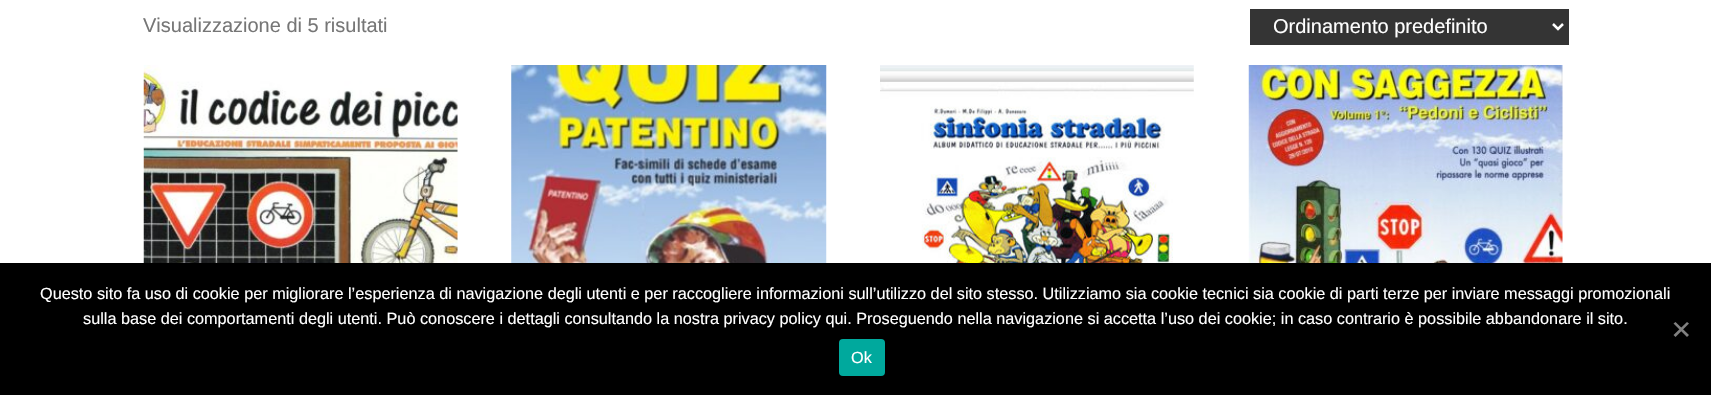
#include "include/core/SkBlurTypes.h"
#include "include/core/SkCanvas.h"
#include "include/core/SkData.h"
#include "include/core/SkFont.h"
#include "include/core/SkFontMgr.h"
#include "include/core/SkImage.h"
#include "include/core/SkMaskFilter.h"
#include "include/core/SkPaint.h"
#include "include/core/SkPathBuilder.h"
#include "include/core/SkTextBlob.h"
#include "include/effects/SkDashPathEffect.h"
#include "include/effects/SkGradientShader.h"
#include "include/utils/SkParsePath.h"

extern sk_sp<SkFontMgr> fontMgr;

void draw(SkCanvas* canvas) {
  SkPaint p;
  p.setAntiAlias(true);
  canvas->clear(SK_ColorWHITE);
  p.setColor(SkColorSetRGB(52, 52, 52));
  canvas->drawRect(SkRect::MakeLTRB(1250, 9, 1569, 45), p);
  p.setStyle(SkPaint::kStroke_Style);
  p.setStrokeWidth(2.5f);
  p.setColor(SK_ColorWHITE);
  canvas->drawPath(SkPathBuilder().moveTo(1553, 24).lineTo(1558, 29).lineTo(1563, 24).detach(), p);
  canvas->drawImageRect(SkImages::DeferredFromEncodedData(SkData::MakeFromFileName("images/1.png")), SkRect::MakeLTRB(143, 65, 458, 263), SkSamplingOptions());
  canvas->drawImageRect(SkImages::DeferredFromEncodedData(SkData::MakeFromFileName("images/2.png")), SkRect::MakeLTRB(511, 65, 827, 263), SkSamplingOptions());
  canvas->drawImageRect(SkImages::DeferredFromEncodedData(SkData::MakeFromFileName("images/3.png")), SkRect::MakeLTRB(880, 65, 1194, 263), SkSamplingOptions());
  canvas->drawImageRect(SkImages::DeferredFromEncodedData(SkData::MakeFromFileName("images/4.png")), SkRect::MakeLTRB(1248, 65, 1563, 263), SkSamplingOptions());
  p.setStyle(SkPaint::kFill_Style);
  p.setColor(SK_ColorBLACK);
  canvas->drawRect(SkRect::MakeLTRB(0, 263, 1711, 395), p);
  p.setColor(SkColorSetRGB(128, 128, 128));
  canvas->drawPath(SkPathBuilder().moveTo(1687, 322).lineTo(1689, 323.5f).lineTo(1675.5f, 337).lineTo(1673.5f, 335).close().detach(), p);
  canvas->drawPath(SkPathBuilder().moveTo(1673.5f, 323.5f).lineTo(1675.5f, 322).lineTo(1689, 335).lineTo(1687, 337).close().detach(), p);
  p.setColor(SkColorSetRGB(0, 169, 157));
  canvas->drawRoundRect(SkRect::MakeLTRB(839, 339, 885, 376), 4, 4, p);
  SkFont font1(fontMgr->matchFamilyStyle("Liberation Sans", SkFontStyle::Normal()), 20);
  font1.setSubpixel(true);
  p.setColor(SkColorSetRGB(118, 118, 118));
  canvas->drawString("Visualizzazione di 5 risultati", 143, 32, font1, p);
  p.setColor(SK_ColorWHITE);
  canvas->drawString("Ordinamento predefinito", 1273, 33, font1, p);
  SkFont font2(fontMgr->matchFamilyStyle("Liberation Sans", SkFontStyle::Normal()), 16.25f);
  font2.setSubpixel(true);
  canvas->drawString("Questo sito fa uso di cookie per migliorare l’esperienza di navigazione degli utenti e per raccogliere informazioni sull’utilizzo del sito stesso. Utilizziamo sia cookie tecnici sia cookie di parti terze per inviare messaggi promozionali", 40, 299, font2, p);
  canvas->drawString("sulla base dei comportamenti degli utenti. Può conoscere i dettagli consultando la nostra privacy policy qui. Proseguendo nella navigazione si accetta l’uso dei cookie; in caso contrario è possibile abbandonare il sito.", 83, 324, font2, p);
  canvas->drawString("Ok", 851, 363, font2, p);
}
